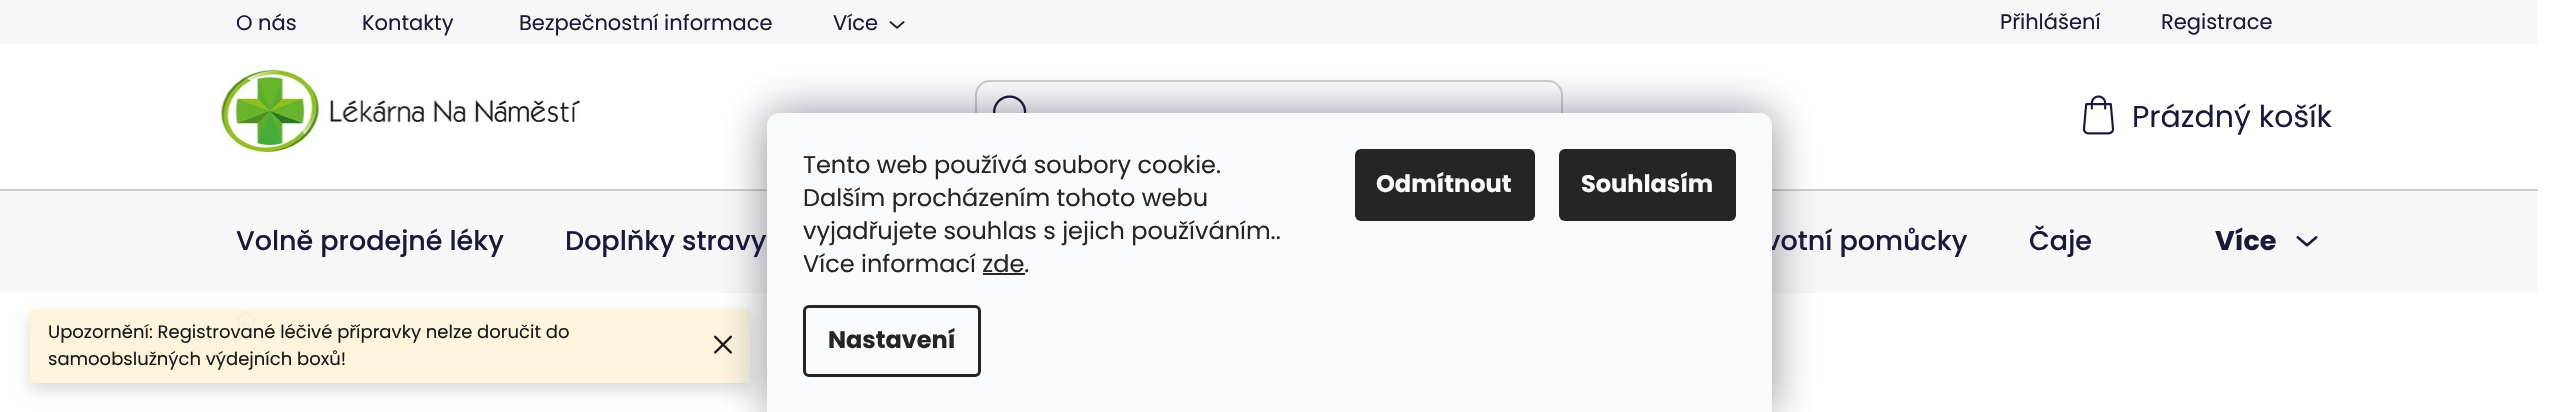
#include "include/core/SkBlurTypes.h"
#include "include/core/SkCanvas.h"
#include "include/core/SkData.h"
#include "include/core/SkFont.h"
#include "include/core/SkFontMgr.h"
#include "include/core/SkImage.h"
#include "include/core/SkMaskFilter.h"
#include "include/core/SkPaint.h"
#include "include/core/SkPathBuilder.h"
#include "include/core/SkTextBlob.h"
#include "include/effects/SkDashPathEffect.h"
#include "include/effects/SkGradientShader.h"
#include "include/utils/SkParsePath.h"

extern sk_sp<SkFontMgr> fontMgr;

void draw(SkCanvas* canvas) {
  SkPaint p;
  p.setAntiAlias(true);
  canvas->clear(SK_ColorWHITE);
  p.setColor(SkColorSetRGB(247, 247, 247));
  canvas->drawRect(SkRect::MakeLTRB(0, 0, 2538, 44), p);
  canvas->drawImageRect(SkImages::DeferredFromEncodedData(SkData::MakeFromFileName("images/1.png")), SkRect::MakeLTRB(889, 21, 905, 29), SkSamplingOptions());
  canvas->drawImageRect(SkImages::DeferredFromEncodedData(SkData::MakeFromFileName("images/2.png")), SkRect::MakeLTRB(220, 66, 581, 154), SkSamplingOptions());
  p.setStyle(SkPaint::kStroke_Style);
  p.setStrokeWidth(2);
  p.setColor(SkColorSetRGB(207, 207, 207));
  canvas->drawRoundRect(SkRect::MakeLTRB(976, 81, 1562, 151), 14, 14, p);
  canvas->drawImageRect(SkImages::DeferredFromEncodedData(SkData::MakeFromFileName("images/3.png")), SkRect::MakeLTRB(993, 95, 1027, 113), SkSamplingOptions());
  canvas->drawImageRect(SkImages::DeferredFromEncodedData(SkData::MakeFromFileName("images/4.png")), SkRect::MakeLTRB(2082, 95, 2115, 135), SkSamplingOptions());
  p.setStyle(SkPaint::kFill_Style);
  p.setColor(SkColorSetRGB(247, 247, 247));
  canvas->drawRect(SkRect::MakeLTRB(0, 191, 2538, 293), p);
  p.setColor(SkColorSetRGB(207, 207, 207));
  canvas->drawRect(SkRect::MakeLTRB(0, 189, 2538, 191), p);
  canvas->drawImageRect(SkImages::DeferredFromEncodedData(SkData::MakeFromFileName("images/5.png")), SkRect::MakeLTRB(2296, 236, 2318, 247), SkSamplingOptions());
  canvas->drawImageRect(SkImages::DeferredFromEncodedData(SkData::MakeFromFileName("images/6.png")), SkRect::MakeLTRB(235, 310, 257, 331), SkSamplingOptions());
  p.setColor(SkColorSetRGB(170, 170, 170));
  canvas->drawRect(SkRect::MakeLTRB(278, 330, 470, 332), p);
  canvas->save();
  canvas->clipPath(SkPathBuilder(SkPathFillType::kEvenOdd).moveTo(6, 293).lineTo(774, 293).lineTo(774, 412).lineTo(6, 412).close().moveTo(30, 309).lineTo(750, 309).lineTo(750, 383).lineTo(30, 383).close().detach(), true);
  p.setColor(SkColorSetARGB(36, 0, 0, 0));
  p.setMaskFilter(SkMaskFilter::MakeBlur(kNormal_SkBlurStyle, 7.5f));
  canvas->drawRect(SkRect::MakeLTRB(30, 317, 750, 390), p);
  p.setMaskFilter(nullptr);
  canvas->restore();
  p.setColor(SkColorSetARGB(230, 253, 243, 218));
  canvas->drawRect(SkRect::MakeLTRB(30, 309, 750, 383), p);
  canvas->drawImageRect(SkImages::DeferredFromEncodedData(SkData::MakeFromFileName("images/7.png")), SkRect::MakeLTRB(714, 335, 732, 354), SkSamplingOptions());
  p.setColor(SkColorSetARGB(128, 27, 25, 57));
  p.setMaskFilter(SkMaskFilter::MakeBlur(kNormal_SkBlurStyle, 22.5f));
  canvas->drawRoundRect(SkRect::MakeLTRB(767, 113, 1772, 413), 12, 12, p);
  p.setMaskFilter(nullptr);
  SkFont font1(fontMgr->matchFamilyStyle("Poppins", SkFontStyle::Normal()), 21);
  font1.setSubpixel(true);
  p.setColor(SkColorSetRGB(26, 25, 55));
  canvas->drawString("O nás", 236, 30, font1, p);
  canvas->drawString("Kontakty", 362, 30, font1, p);
  canvas->drawString("Bezpečnostní informace", 519, 30, font1, p);
  canvas->drawString("Více", 833, 30, font1, p);
  canvas->drawString("Přihlášení", 2000, 29, font1, p);
  canvas->drawString("Registrace", 2161, 29, font1, p);
  SkFont font2(fontMgr->matchFamilyStyle("Poppins", SkFontStyle::Normal()), 30);
  font2.setSubpixel(true);
  canvas->drawString("Prázdný košík", 2132, 127, font2, p);
  SkFont font3(fontMgr->matchFamilyStyle("Poppins", SkFontStyle(500, SkFontStyle::kNormal_Width, SkFontStyle::kUpright_Slant)), 27);
  font3.setSubpixel(true);
  canvas->drawString("Volně prodejné léky", 236, 250, font3, p);
  canvas->drawString("Doplňky stravy", 565, 250, font3, p);
  canvas->drawString("votní pomůcky", 1765, 250, font3, p);
  canvas->drawString("Čaje", 2029, 250, font3, p);
  SkFont font4(fontMgr->matchFamilyStyle("Poppins", SkFontStyle::Bold()), 27);
  font4.setSubpixel(true);
  canvas->drawString("Více", 2215, 250, font4, p);
  SkFont font5(fontMgr->matchFamilyStyle("Poppins", SkFontStyle::Normal()), 18);
  font5.setSubpixel(true);
  p.setColor(SkColorSetRGB(25, 24, 22));
  canvas->drawString("Upozornění: Registrované léčivé přípravky nelze doručit do", 48, 338, font5, p);
  canvas->drawString("samoobslužných výdejních boxů!", 48, 365, font5, p);
  p.setColor(SkColorSetRGB(248, 250, 251));
  canvas->drawPath(SkPathBuilder().moveTo(779, 113).lineTo(1760, 113).cubicTo(1766.5f, 113, 1772, 118.5f, 1772, 125).lineTo(1772, 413).lineTo(767, 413).lineTo(767, 125).cubicTo(767, 118.5f, 772.5f, 113, 779, 113).close().detach(), p);
  SkFont font6(fontMgr->matchFamilyStyle("Poppins", SkFontStyle::Normal()), 24);
  font6.setSubpixel(true);
  p.setColor(SkColorSetRGB(37, 37, 37));
  canvas->drawString("Tento web používá soubory cookie.", 803, 173, font6, p);
  canvas->drawString("Dalším procházením tohoto webu", 803, 206, font6, p);
  canvas->drawString("vyjadřujete souhlas s jejich používáním..", 803, 239, font6, p);
  canvas->drawString("Více informací zde.", 803, 272, font6, p);
  canvas->drawRect(SkRect::MakeLTRB(983, 273, 1025, 275), p);
  p.setStyle(SkPaint::kStroke_Style);
  p.setStrokeWidth(3);
  canvas->drawRoundRect(SkRect::MakeLTRB(804.5f, 306.5f, 979.5f, 375.5f), 4.5f, 4.5f, p);
  SkFont font7(fontMgr->matchFamilyStyle("Poppins", SkFontStyle::Bold()), 24);
  font7.setSubpixel(true);
  p.setStyle(SkPaint::kFill_Style);
  canvas->drawString("Nastavení", 828, 348, font7, p);
  canvas->drawRoundRect(SkRect::MakeLTRB(1355, 149, 1535, 221), 6, 6, p);
  p.setColor(SkColorSetRGB(248, 250, 251));
  canvas->drawString("Odmítnout", 1376, 192, font7, p);
  p.setColor(SkColorSetRGB(37, 37, 37));
  canvas->drawRoundRect(SkRect::MakeLTRB(1559, 149, 1736, 221), 6, 6, p);
  p.setColor(SkColorSetRGB(248, 250, 251));
  canvas->drawString("Souhlasím", 1581, 192, font7, p);
}
